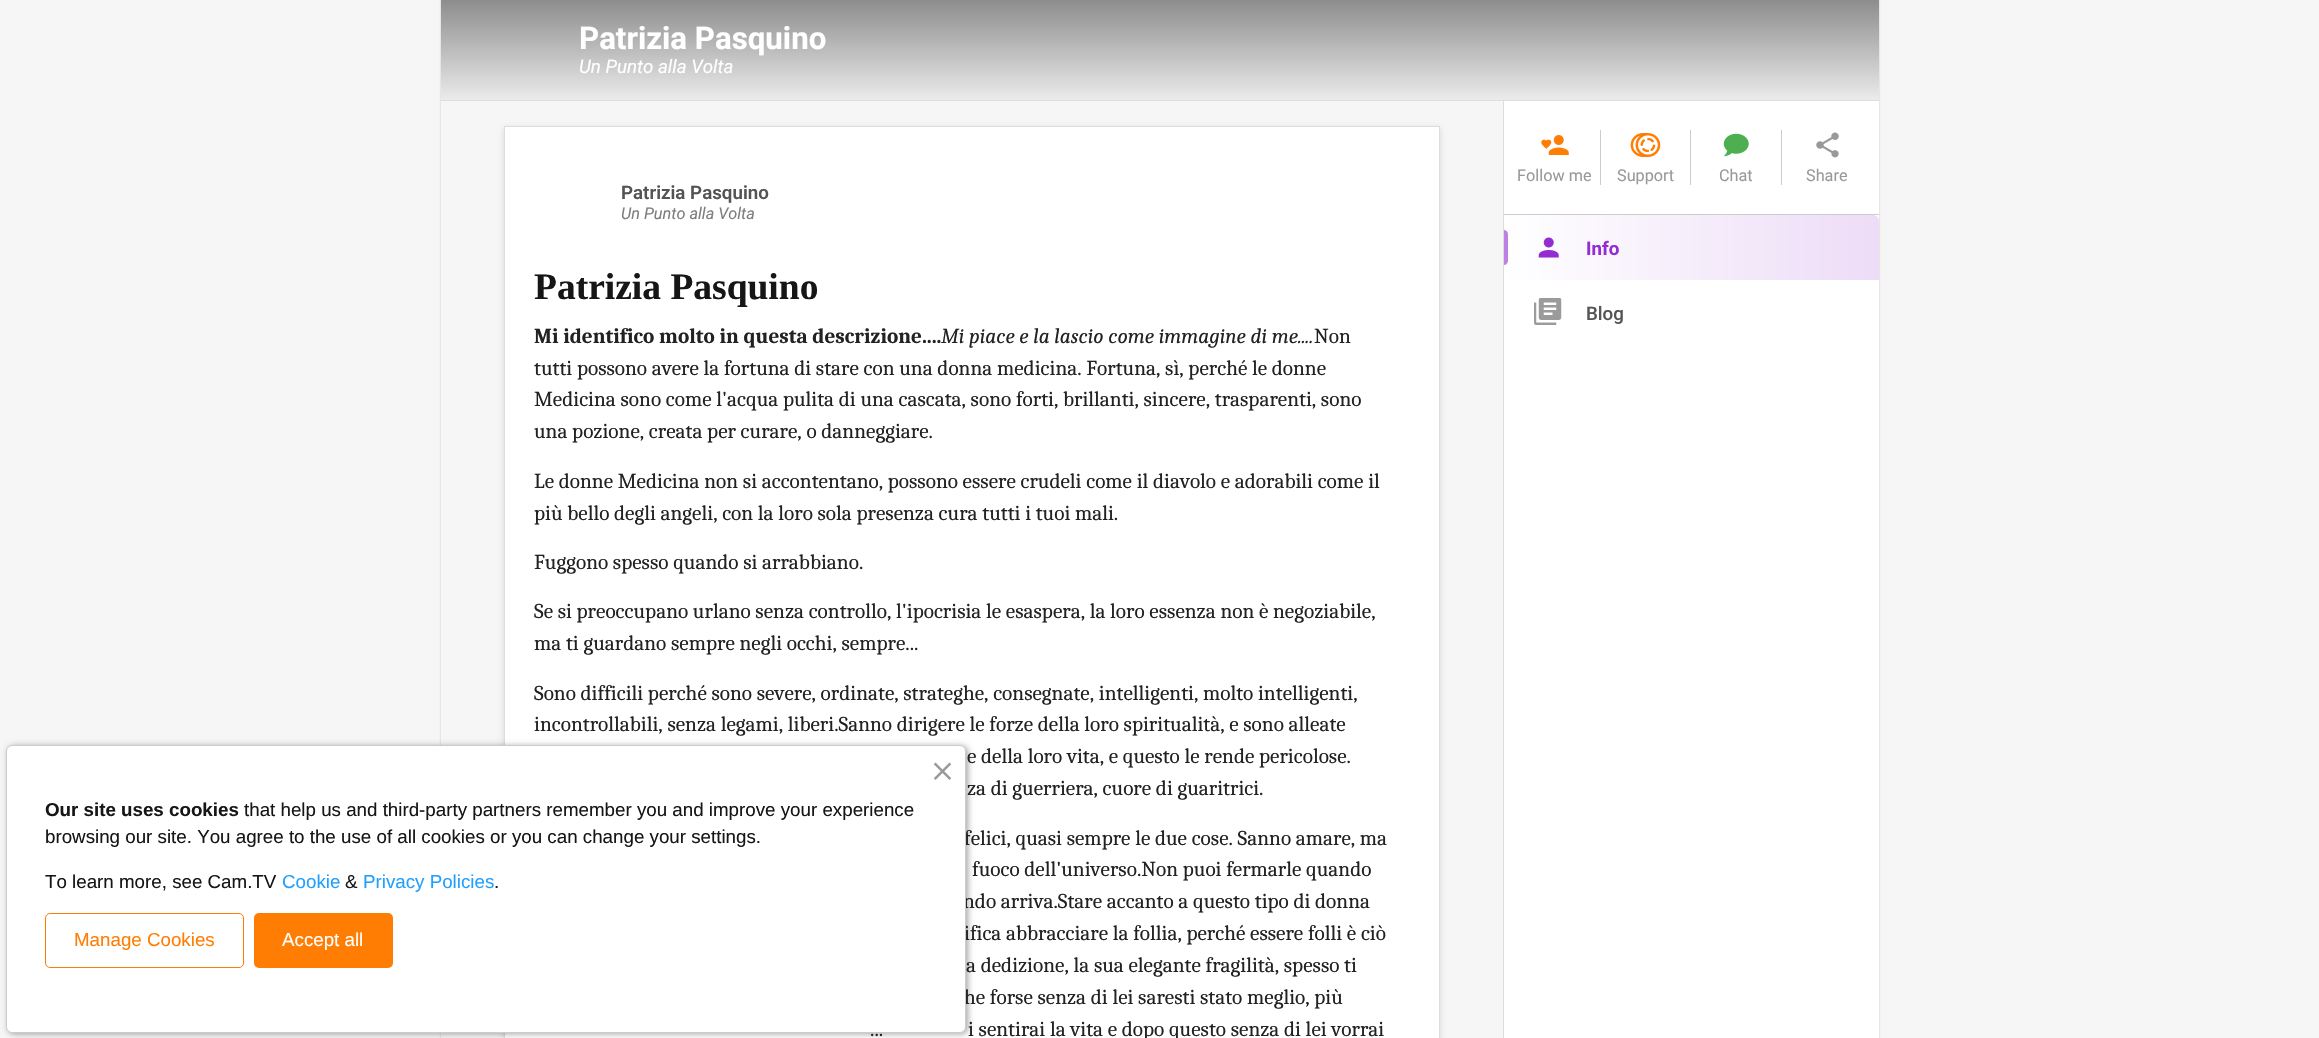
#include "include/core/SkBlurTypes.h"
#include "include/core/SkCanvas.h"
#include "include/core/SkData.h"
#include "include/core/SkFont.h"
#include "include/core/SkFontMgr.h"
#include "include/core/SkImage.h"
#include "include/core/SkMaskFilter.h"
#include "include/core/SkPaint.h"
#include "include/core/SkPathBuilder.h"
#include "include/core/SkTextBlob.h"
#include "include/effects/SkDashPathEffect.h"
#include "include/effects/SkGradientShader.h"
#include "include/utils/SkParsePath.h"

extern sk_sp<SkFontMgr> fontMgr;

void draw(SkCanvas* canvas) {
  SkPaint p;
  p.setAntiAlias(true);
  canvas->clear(SkColorSetRGB(246, 246, 246));
  p.setColor(SkColorSetARGB(51, 0, 0, 0));
  p.setMaskFilter(SkMaskFilter::MakeBlur(kNormal_SkBlurStyle, 1));
  canvas->drawRect(SkRect::MakeLTRB(441, 0, 1879, 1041), p);
  p.setMaskFilter(nullptr);
  p.setColor(SkColorSetRGB(246, 246, 246));
  canvas->drawRect(SkRect::MakeLTRB(441, 101, 1503, 1038), p);
  p.setColor(SkColorSetARGB(31, 0, 0, 0));
  p.setMaskFilter(SkMaskFilter::MakeBlur(kNormal_SkBlurStyle, 3));
  canvas->drawRect(SkRect::MakeLTRB(504, 128, 1440, 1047), p);
  p.setMaskFilter(nullptr);
  p.setColor(SK_ColorWHITE);
  canvas->drawRect(SkRect::MakeLTRB(504.5f, 126.5f, 1439.5f, 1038.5f), p);
  p.setStyle(SkPaint::kStroke_Style);
  p.setStrokeWidth(1);
  p.setColor(SkColorSetRGB(221, 221, 221));
  canvas->drawRect(SkRect::MakeLTRB(504.5f, 126.5f, 1439.5f, 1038.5f), p);
  p.setStyle(SkPaint::kFill_Style);
  p.setColor(SkColorSetARGB(89, 0, 0, 0));
  p.setMaskFilter(SkMaskFilter::MakeBlur(kNormal_SkBlurStyle, 3));
  canvas->drawRoundRect(SkRect::MakeLTRB(8, 746, 968, 1034), 6, 6, p);
  p.setMaskFilter(nullptr);
  p.setColor(SK_ColorWHITE);
  canvas->drawRect(SkRect::MakeLTRB(1504, 101, 1879, 1038), p);
  p.setColor(SkColorSetRGB(221, 221, 221));
  canvas->drawRect(SkRect::MakeLTRB(441, 100, 1879, 101), p);
  {
    const SkColor colors[] = {SkColorSetRGB(141, 141, 141), SkColorSetRGB(235, 235, 235)};
    const float stops[] = {0, 1};
    const SkPoint ends[] = {{1160, 0}, {1160, 100}};
    p.setShader(SkGradientShader::MakeLinear(ends, colors, stops, 2, SkTileMode::kClamp));
    p.setAlpha(255);
  }
  canvas->drawRect(SkRect::MakeLTRB(441, 0, 1879, 100), p);
  p.setShader(nullptr);
  p.setColor(SkColorSetRGB(221, 221, 221));
  canvas->drawRect(SkRect::MakeLTRB(1503, 101, 1504, 1038), p);
  p.setColor(SkColorSetRGB(204, 204, 204));
  canvas->drawRect(SkRect::MakeLTRB(1504, 214, 1879, 215), p);
  canvas->drawRect(SkRect::MakeLTRB(1600, 130, 1601, 185), p);
  canvas->drawImageRect(SkImages::DeferredFromEncodedData(SkData::MakeFromFileName("images/2.png")), SkRect::MakeLTRB(1541, 135, 1569, 155), SkSamplingOptions());
  canvas->drawRect(SkRect::MakeLTRB(1690, 130, 1691, 185), p);
  canvas->drawImageRect(SkImages::DeferredFromEncodedData(SkData::MakeFromFileName("images/3.png")), SkRect::MakeLTRB(1630, 133, 1661, 157), SkSamplingOptions());
  canvas->drawRect(SkRect::MakeLTRB(1781, 130, 1782, 185), p);
  canvas->drawImageRect(SkImages::DeferredFromEncodedData(SkData::MakeFromFileName("images/4.png")), SkRect::MakeLTRB(1723, 133, 1749, 157), SkSamplingOptions());
  canvas->drawImageRect(SkImages::DeferredFromEncodedData(SkData::MakeFromFileName("images/5.png")), SkRect::MakeLTRB(1816, 132, 1839, 158), SkSamplingOptions());
  {
    const SkColor colors[] = {SkColorSetRGB(237, 220, 247), SK_ColorWHITE};
    const float stops[] = {0, 1};
    const SkPoint ends[] = {{1879, 247}, {1504, 248}};
    p.setShader(SkGradientShader::MakeLinear(ends, colors, stops, 2, SkTileMode::kClamp));
    p.setAlpha(255);
  }
  canvas->drawPath(SkPathBuilder().moveTo(1510, 215).lineTo(1873, 215).cubicTo(1876.5f, 215, 1879, 217.5f, 1879, 221).lineTo(1879, 280).lineTo(1504, 280).lineTo(1504, 221).cubicTo(1504, 217.5f, 1506.5f, 215, 1510, 215).close().detach(), p);
  p.setShader(nullptr);
  p.setColor(SkColorSetRGB(190, 129, 227));
  canvas->drawPath(SkPathBuilder().moveTo(1504, 230).cubicTo(1506, 230, 1508, 232, 1508, 234).lineTo(1508, 261).cubicTo(1508, 263, 1506, 265, 1504, 265).close().detach(), p);
  canvas->drawImageRect(SkImages::DeferredFromEncodedData(SkData::MakeFromFileName("images/6.png")), SkRect::MakeLTRB(1538, 237, 1559, 258), SkSamplingOptions());
  canvas->drawImageRect(SkImages::DeferredFromEncodedData(SkData::MakeFromFileName("images/7.png")), SkRect::MakeLTRB(1534, 298, 1562, 325), SkSamplingOptions());
  SkFont font1(fontMgr->matchFamilyStyle("Roboto", SkFontStyle::Bold()), 31.25f);
  font1.setSubpixel(true);
  p.setColor(SK_ColorWHITE);
  canvas->drawString("Patrizia Pasquino", 579, 49, font1, p);
  SkFont font2(fontMgr->matchFamilyStyle("Roboto", SkFontStyle::Italic()), 18.75f);
  font2.setSubpixel(true);
  canvas->drawString("Un Punto alla Volta", 579, 73, font2, p);
  SkFont font3(fontMgr->matchFamilyStyle("Roboto", SkFontStyle(600, SkFontStyle::kNormal_Width, SkFontStyle::kUpright_Slant)), 18.75f);
  font3.setSubpixel(true);
  p.setColor(SkColorSetRGB(84, 84, 84));
  canvas->drawString("Patrizia Pasquino", 621, 199, font3, p);
  SkFont font4(fontMgr->matchFamilyStyle("Roboto", SkFontStyle::Italic()), 16.25f);
  font4.setSubpixel(true);
  p.setColor(SkColorSetRGB(126, 126, 126));
  canvas->drawString("Un Punto alla Volta", 621, 219, font4, p);
  SkFont font5(fontMgr->matchFamilyStyle("Liberation Serif", SkFontStyle::Bold()), 37.5f);
  font5.setSubpixel(true);
  p.setColor(SkColorSetRGB(22, 22, 22));
  canvas->drawString("Patrizia Pasquino", 534, 299, font5, p);
  SkFont font6(fontMgr->matchFamilyStyle("Caladea", SkFontStyle::Bold()), 21.25f);
  font6.setSubpixel(true);
  p.setColor(SkColorSetRGB(34, 34, 34));
  canvas->drawString("Mi identifico molto in questa descrizione....", 534, 343, font6, p);
  SkFont font7(fontMgr->matchFamilyStyle("Caladea", SkFontStyle::Italic()), 21.25f);
  font7.setSubpixel(true);
  canvas->drawString("Mi piace e la lascio come immagine di me....", 941, 343, font7, p);
  SkFont font8(fontMgr->matchFamilyStyle("Caladea", SkFontStyle::Normal()), 21.25f);
  font8.setSubpixel(true);
  canvas->drawString("Non", 1314, 343, font8, p);
  canvas->drawString("tutti possono avere la fortuna di stare con una donna medicina. Fortuna, sì, perché le donne", 534, 375, font8, p);
  canvas->drawString("Medicina sono come l'acqua pulita di una cascata, sono forti, brillanti, sincere, trasparenti, sono", 534, 406, font8, p);
  canvas->drawString("una pozione, creata per curare, o danneggiare.", 534, 438, font8, p);
  canvas->drawString("Le donne Medicina non si accontentano, possono essere crudeli come il diavolo e adorabili come il", 534, 488, font8, p);
  canvas->drawString("più bello degli angeli, con la loro sola presenza cura tutti i tuoi mali.", 534, 520, font8, p);
  canvas->drawString("Fuggono spesso quando si arrabbiano.", 534, 569, font8, p);
  canvas->drawString("Se si preoccupano urlano senza controllo, l'ipocrisia le esaspera, la loro essenza non è negoziabile,", 534, 618, font8, p);
  canvas->drawString("ma ti guardano sempre negli occhi, sempre...", 534, 650, font8, p);
  canvas->drawString("Sono difficili perché sono severe, ordinate, strateghe, consegnate, intelligenti, molto intelligenti,", 534, 700, font8, p);
  canvas->drawString("incontrollabili, senza legami, liberi.Sanno dirigere le forze della loro spiritualità, e sono alleate", 534, 731, font8, p);
  canvas->drawString("e della loro vita, e questo le rende pericolose.", 967, 763, font8, p);
  canvas->drawString("za di guerriera, cuore di guaritrici.", 967, 795, font8, p);
  canvas->drawString("felici, quasi sempre le due cose. Sanno amare, ma", 964, 845, font8, p);
  canvas->drawString("fuoco dell'universo.Non puoi fermarle quando", 972, 876, font8, p);
  canvas->drawString("ndo arriva.Stare accanto a questo tipo di donna", 963, 908, font8, p);
  canvas->drawString("ifica abbracciare la follia, perché essere folli è ciò", 964, 940, font8, p);
  canvas->drawString("a dedizione, la sua elegante fragilità, spesso ti", 966, 972, font8, p);
  canvas->drawString("he forse senza di lei saresti stato meglio, più", 964, 1004, font8, p);
  p.setColor(SK_ColorWHITE);
  canvas->drawRoundRect(SkRect::MakeLTRB(6.5f, 745.5f, 965.5f, 1032.5f), 5.5f, 5.5f, p);
  p.setStyle(SkPaint::kStroke_Style);
  p.setColor(SkColorSetRGB(204, 204, 204));
  canvas->drawRoundRect(SkRect::MakeLTRB(6.5f, 745.5f, 965.5f, 1032.5f), 5.5f, 5.5f, p);
  canvas->drawImageRect(SkImages::DeferredFromEncodedData(SkData::MakeFromFileName("images/1.png")), SkRect::MakeLTRB(933, 762, 952, 780), SkSamplingOptions());
  p.setStyle(SkPaint::kFill_Style);
  p.setColor(SkColorSetRGB(255, 125, 2));
  canvas->drawRoundRect(SkRect::MakeLTRB(254, 913, 393, 968), 5, 5, p);
  SkFont font9(fontMgr->matchFamilyStyle("Liberation Sans", SkFontStyle::Normal()), 18.75f);
  font9.setSubpixel(true);
  p.setColor(SK_ColorWHITE);
  canvas->drawString("Accept all", 282, 946, font9, p);
  p.setStyle(SkPaint::kStroke_Style);
  p.setColor(SkColorSetRGB(255, 125, 2));
  canvas->drawRoundRect(SkRect::MakeLTRB(45.5f, 913.5f, 243.5f, 967.5f), 4.5f, 4.5f, p);
  p.setStyle(SkPaint::kFill_Style);
  canvas->drawString("Manage Cookies", 74, 946, font9, p);
  p.setColor(SkColorSetRGB(22, 22, 22));
  canvas->drawString(".", 494, 888, font9, p);
  p.setColor(SkColorSetRGB(33, 159, 255));
  canvas->drawString("Privacy Policies", 363, 888, font9, p);
  p.setColor(SkColorSetRGB(22, 22, 22));
  canvas->drawString("&", 345, 888, font9, p);
  p.setColor(SkColorSetRGB(33, 159, 255));
  canvas->drawString("Cookie", 282, 888, font9, p);
  p.setColor(SkColorSetRGB(22, 22, 22));
  canvas->drawString("To learn more, see Cam.TV", 45, 888, font9, p);
  canvas->drawString("browsing our site. You agree to the use of all cookies or you can change your settings.", 45, 843, font9, p);
  canvas->drawString("that help us and third-party partners remember you and improve your experience", 244, 816, font9, p);
  SkFont font10(fontMgr->matchFamilyStyle("Liberation Sans", SkFontStyle::Bold()), 18.75f);
  font10.setSubpixel(true);
  canvas->drawString("Our site uses cookies", 45, 816, font10, p);
  p.setColor(SkColorSetRGB(34, 34, 34));
  canvas->drawString("...", 870, 1036, font8, p);
  canvas->drawString("i sentirai la vita e dopo questo senza di lei vorrai", 968, 1036, font8, p);
  SkFont font11(fontMgr->matchFamilyStyle("Roboto", SkFontStyle::Normal()), 16.25f);
  font11.setSubpixel(true);
  p.setColor(SkColorSetRGB(153, 153, 153));
  canvas->drawString("Follow me", 1517, 181, font11, p);
  canvas->drawString("Support", 1617, 181, font11, p);
  canvas->drawString("Chat", 1719, 181, font11, p);
  canvas->drawString("Share", 1806, 181, font11, p);
  SkFont font12(fontMgr->matchFamilyStyle("Roboto", SkFontStyle::Bold()), 18.75f);
  font12.setSubpixel(true);
  p.setColor(SkColorSetRGB(147, 45, 209));
  canvas->drawString("Info", 1586, 255, font12, p);
  SkFont font13(fontMgr->matchFamilyStyle("Roboto", SkFontStyle(500, SkFontStyle::kNormal_Width, SkFontStyle::kUpright_Slant)), 18.75f);
  font13.setSubpixel(true);
  p.setColor(SkColorSetRGB(84, 84, 84));
  canvas->drawString("Blog", 1586, 320, font13, p);
}
